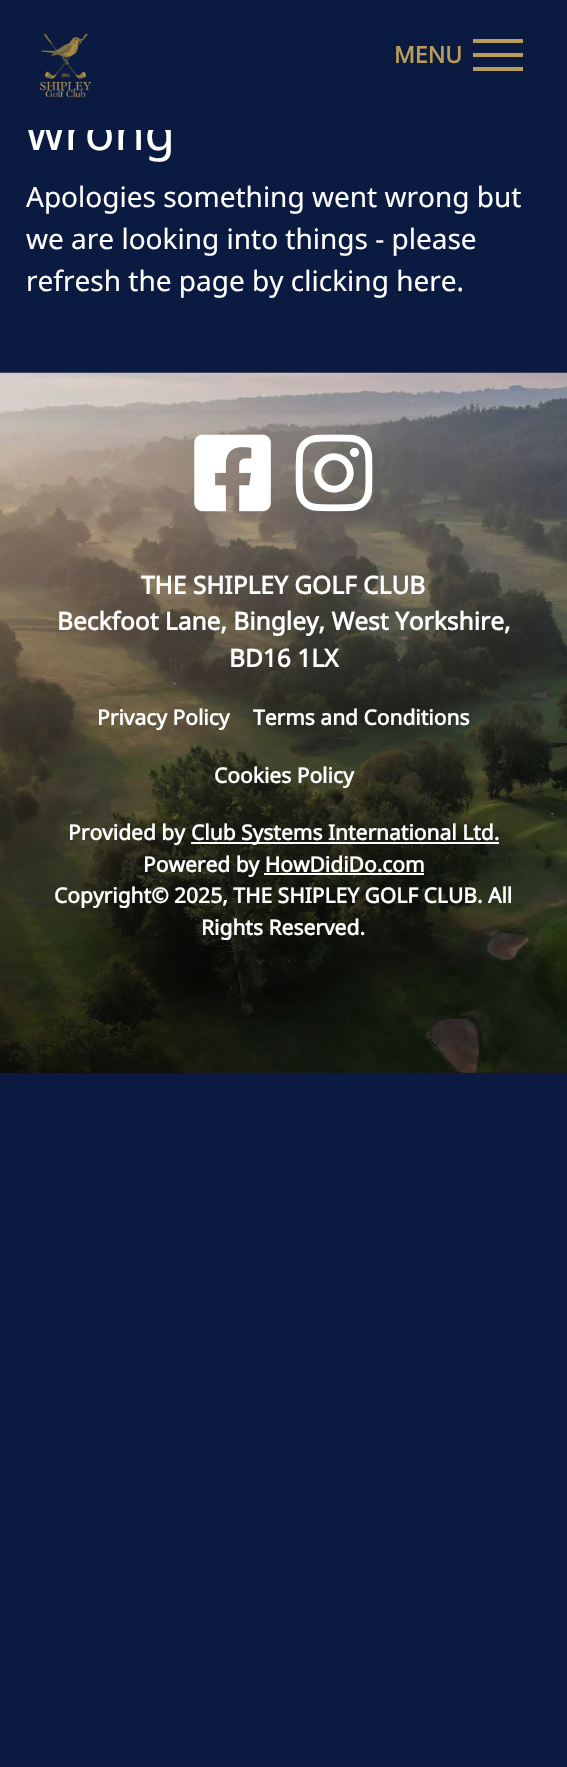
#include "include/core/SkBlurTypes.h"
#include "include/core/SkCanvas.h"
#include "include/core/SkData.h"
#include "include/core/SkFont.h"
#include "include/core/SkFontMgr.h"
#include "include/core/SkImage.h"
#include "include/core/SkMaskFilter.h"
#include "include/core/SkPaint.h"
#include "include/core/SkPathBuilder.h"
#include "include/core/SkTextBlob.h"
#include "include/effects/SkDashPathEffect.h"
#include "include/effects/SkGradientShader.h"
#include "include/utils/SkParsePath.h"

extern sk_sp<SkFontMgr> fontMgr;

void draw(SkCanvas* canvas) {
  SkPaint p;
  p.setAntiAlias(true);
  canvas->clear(SkColorSetRGB(11, 26, 64));
  canvas->drawImageRect(SkImages::DeferredFromEncodedData(SkData::MakeFromFileName("images/1.png")), SkRect::MakeLTRB(40, 33, 92, 98), SkSamplingOptions());
  p.setColor(SkColorSetRGB(184, 156, 90));
  canvas->drawRect(SkRect::MakeLTRB(473, 39, 523, 43), p);
  canvas->drawRect(SkRect::MakeLTRB(473, 53, 523, 57), p);
  canvas->drawRect(SkRect::MakeLTRB(473, 67, 523, 71), p);
  canvas->drawImageRect(SkImages::DeferredFromEncodedData(SkData::MakeFromFileName("images/2.png")), SkRect::MakeLTRB(0, 372, 567, 1073), SkSamplingOptions());
  {
    const SkColor colors[] = {SkColorSetARGB(0, 0, 0, 0), SkColorSetARGB(102, 0, 0, 0)};
    const float stops[] = {0, 1};
    const SkPoint ends[] = {{283, 373}, {284, 1073}};
    p.setShader(SkGradientShader::MakeLinear(ends, colors, stops, 2, SkTileMode::kClamp));
    p.setAlpha(255);
  }
  canvas->drawRect(SkRect::MakeLTRB(0, 410, 567, 1073), p);
  canvas->drawImageRect(SkImages::DeferredFromEncodedData(SkData::MakeFromFileName("images/3.png")), SkRect::MakeLTRB(194, 434, 271, 512), SkSamplingOptions());
  canvas->drawImageRect(SkImages::DeferredFromEncodedData(SkData::MakeFromFileName("images/4.png")), SkRect::MakeLTRB(295, 434, 373, 512), SkSamplingOptions());
  p.setShader(nullptr);
  p.setColor(SK_ColorWHITE);
  canvas->drawRect(SkRect::MakeLTRB(191, 842, 499, 844), p);
  canvas->drawRect(SkRect::MakeLTRB(264, 873, 424, 875), p);
  SkFont font1(fontMgr->matchFamilyStyle("Noto Sans", SkFontStyle::Bold()), 23);
  font1.setSubpixel(true);
  p.setColor(SkColorSetRGB(184, 156, 90));
  canvas->drawString("MENU", 394, 63, font1, p);
  SkFont font2(fontMgr->matchFamilyStyle("Noto Sans", SkFontStyle::Normal()), 49);
  font2.setSubpixel(true);
  p.setColor(SK_ColorWHITE);
  canvas->drawString("wrong", 26, 150, font2, p);
  p.setColor(SkColorSetRGB(11, 26, 64));
  canvas->drawRect(SkRect::MakeLTRB(26, 123, 171, 130), p);
  SkFont font3(fontMgr->matchFamilyStyle("Noto Sans", SkFontStyle::Normal()), 28);
  font3.setSubpixel(true);
  p.setColor(SK_ColorWHITE);
  canvas->drawString("Apologies something went wrong but", 26, 207, font3, p);
  canvas->drawString("we are looking into things - please", 26, 249, font3, p);
  canvas->drawString("refresh the page by clicking here.", 26, 291, font3, p);
  SkFont font4(fontMgr->matchFamilyStyle("Noto Sans", SkFontStyle::Bold()), 24.5f);
  font4.setSubpixel(true);
  canvas->drawString("THE SHIPLEY GOLF CLUB", 141, 594, font4, p);
  canvas->drawString("Beckfoot Lane, Bingley, West Yorkshire,", 57, 630, font4, p);
  canvas->drawString("BD16 1LX", 229, 667, font4, p);
  SkFont font5(fontMgr->matchFamilyStyle("Noto Sans", SkFontStyle::Bold()), 21);
  font5.setSubpixel(true);
  canvas->drawString("Privacy Policy", 97, 725, font5, p);
  canvas->drawString("Terms and Conditions", 253, 725, font5, p);
  canvas->drawString("Cookies Policy", 214, 783, font5, p);
  canvas->drawString("Provided by", 68, 840, font5, p);
  canvas->drawString("Club Systems International Ltd.", 191, 840, font5, p);
  canvas->drawString("Powered by HowDidiDo.com", 143, 872, font5, p);
  canvas->drawString("Copyright© 2025, THE SHIPLEY GOLF CLUB. All", 54, 903, font5, p);
  canvas->drawString("Rights Reserved.", 201, 935, font5, p);
}
